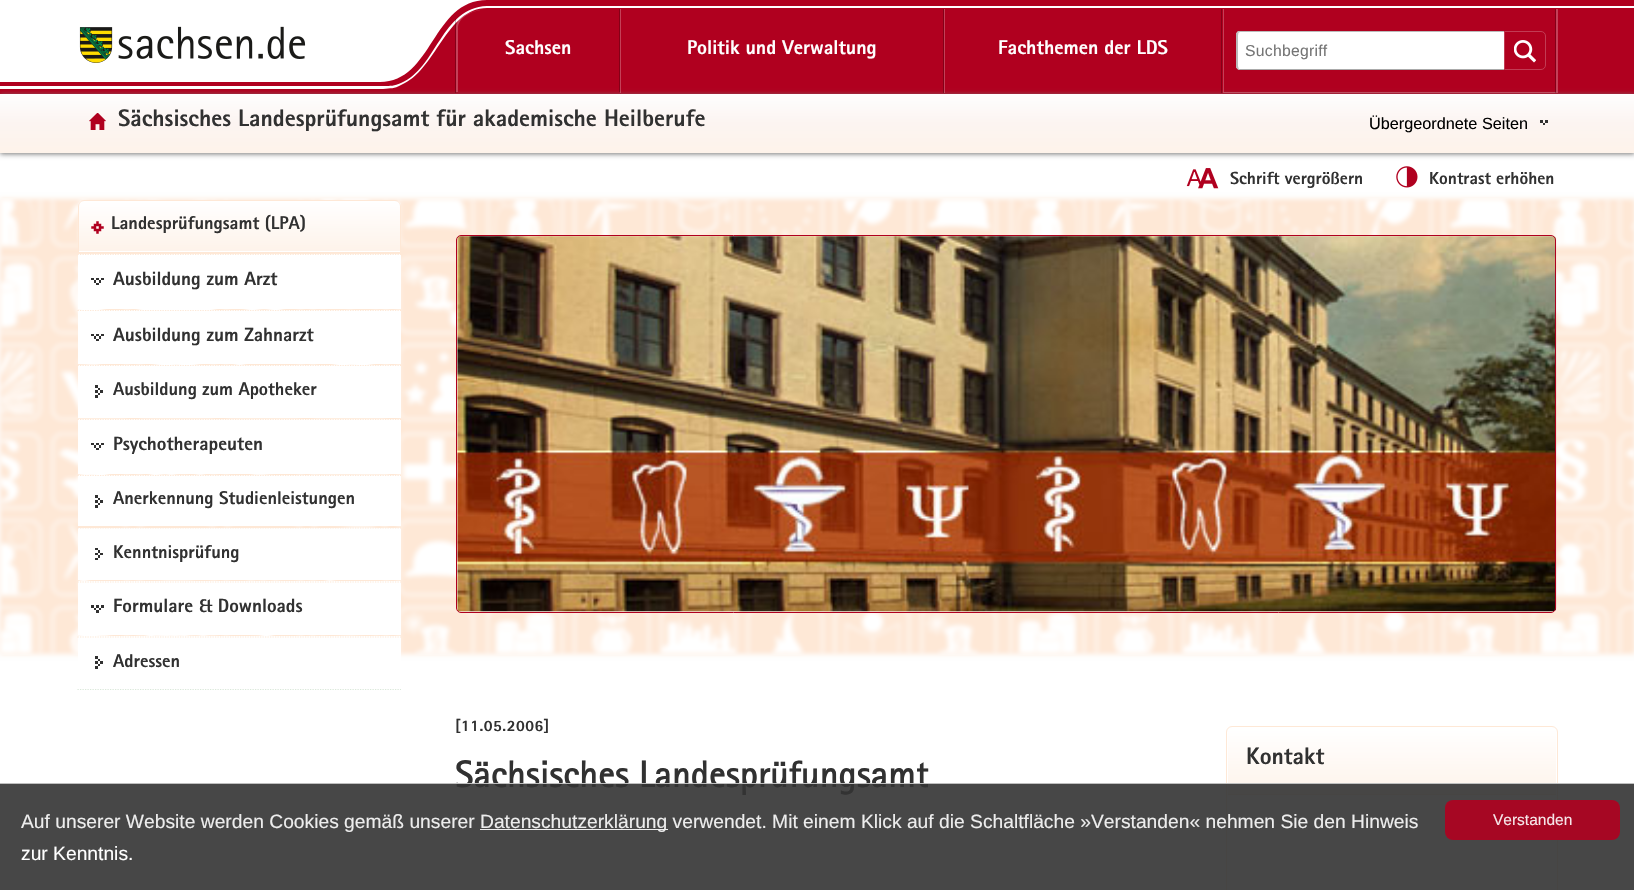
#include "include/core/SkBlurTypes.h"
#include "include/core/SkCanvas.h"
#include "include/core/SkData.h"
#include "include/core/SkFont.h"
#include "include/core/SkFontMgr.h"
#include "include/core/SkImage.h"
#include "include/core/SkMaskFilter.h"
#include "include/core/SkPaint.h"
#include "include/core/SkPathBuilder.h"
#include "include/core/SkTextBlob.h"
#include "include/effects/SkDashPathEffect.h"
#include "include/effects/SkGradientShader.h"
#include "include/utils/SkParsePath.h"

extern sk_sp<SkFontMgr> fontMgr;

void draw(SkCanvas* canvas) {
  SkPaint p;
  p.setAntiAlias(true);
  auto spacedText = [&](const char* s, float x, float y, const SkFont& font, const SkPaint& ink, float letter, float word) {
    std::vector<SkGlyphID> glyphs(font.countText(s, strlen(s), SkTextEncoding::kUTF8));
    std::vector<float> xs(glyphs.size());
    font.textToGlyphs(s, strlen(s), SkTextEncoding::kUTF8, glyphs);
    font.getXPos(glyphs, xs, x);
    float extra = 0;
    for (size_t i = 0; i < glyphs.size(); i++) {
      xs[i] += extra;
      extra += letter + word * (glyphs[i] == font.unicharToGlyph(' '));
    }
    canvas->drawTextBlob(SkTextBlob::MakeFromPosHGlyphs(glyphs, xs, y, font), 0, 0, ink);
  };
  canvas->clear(SK_ColorWHITE);
  p.setColor(SkColorSetRGB(176, 0, 31));
  canvas->drawRect(SkRect::MakeLTRB(0, 0, 1634, 94), p);
  p.setColor(SK_ColorWHITE);
  canvas->drawPath(SkPathBuilder().moveTo(487, 6).cubicTo(441, 8, 437, 68, 401, 83).cubicTo(394, 86, 391, 86, 383, 86).lineTo(-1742, 86).lineTo(-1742, 89).lineTo(383, 89).cubicTo(391, 88, 394, 89, 401, 85).cubicTo(436, 71, 446, 8, 487, 8).lineTo(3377, 8).lineTo(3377, 6).close().detach(), p);
  canvas->drawPath(SkPathBuilder().moveTo(380, 82).cubicTo(433, 82, 432, 0, 487, 0).lineTo(-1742, 0).lineTo(-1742, 82).close().detach(), p);
  canvas->drawImageRect(SkImages::DeferredFromEncodedData(SkData::MakeFromFileName("images/1.png")), SkRect::MakeLTRB(79, 26, 306, 63), SkSamplingOptions());
  p.setColor(SkColorSetRGB(121, 121, 121));
  p.setMaskFilter(SkMaskFilter::MakeBlur(kNormal_SkBlurStyle, 2.5f));
  canvas->drawRect(SkRect::MakeLTRB(0, 95, 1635, 154), p);
  p.setMaskFilter(nullptr);
  p.setColor(SkColorSetARGB(64, 0, 0, 0));
  canvas->drawRect(SkRect::MakeLTRB(1221, 9, 1222, 93), p);
  canvas->drawRect(SkRect::MakeLTRB(455, 19, 456, 93), p);
  canvas->drawRect(SkRect::MakeLTRB(619, 9, 620, 92), p);
  p.setColor(SkColorSetARGB(64, 255, 255, 255));
  canvas->drawPath(SkPathBuilder().moveTo(491, 9).cubicTo(473, 9, 458, 17, 458, 28).lineTo(458, 92).lineTo(456, 92).lineTo(456, 26).cubicTo(458, 16, 473, 9, 491, 9).close().detach(), p);
  p.setColor(SkColorSetARGB(64, 0, 0, 0));
  canvas->drawRect(SkRect::MakeLTRB(943, 9, 944, 93), p);
  p.setColor(SkColorSetARGB(64, 255, 255, 255));
  canvas->drawRect(SkRect::MakeLTRB(620, 9, 621, 93), p);
  canvas->drawRect(SkRect::MakeLTRB(944, 9, 945, 93), p);
  canvas->drawPath(SkPathBuilder().moveTo(1224, 92).lineTo(1224, 93).lineTo(1558, 93).lineTo(1558, 9).lineTo(1556, 9).lineTo(1556, 92).close().detach(), p);
  p.setColor(SkColorSetARGB(64, 0, 0, 0));
  canvas->drawRect(SkRect::MakeLTRB(1555, 9, 1556, 93), p);
  p.setColor(SkColorSetARGB(64, 255, 255, 255));
  canvas->drawRect(SkRect::MakeLTRB(1223, 9, 1224, 93), p);
  p.setColor(SK_ColorWHITE);
  canvas->drawPath(SkPathBuilder().moveTo(1240, 31).lineTo(1509, 31).lineTo(1509, 70).lineTo(1240, 70).cubicTo(1238, 70, 1236, 68, 1236, 66).lineTo(1236, 35).cubicTo(1236, 33, 1238, 31, 1240, 31).close().detach(), p);
  p.setColor(SkColorSetRGB(187, 187, 187));
  canvas->drawPath(SkPathBuilder().moveTo(1240, 32).lineTo(1238, 33).lineTo(1237, 32).lineTo(1238, 31).lineTo(1509, 31).lineTo(1508, 32).close().detach(), p);
  p.setColor(SkColorSetRGB(170, 170, 170));
  canvas->drawPath(SkPathBuilder().moveTo(1509, 70).lineTo(1508, 69).lineTo(1239, 69).lineTo(1238, 68).lineTo(1237, 69).lineTo(1240, 70).close().detach(), p);
  p.setColor(SkColorSetRGB(187, 187, 187));
  canvas->drawPath(SkPathBuilder().moveTo(1236, 33.5f).lineTo(1237, 32).lineTo(1238.5f, 33.5f).lineTo(1238, 35).lineTo(1238, 66).lineTo(1238.5f, 68).lineTo(1237.5f, 69).lineTo(1236, 67.5f).close().detach(), p);
  p.setColor(SkColorSetRGB(176, 0, 31));
  canvas->drawPath(SkPathBuilder().moveTo(1504, 31).lineTo(1541, 31).cubicTo(1544, 31, 1546, 33, 1546, 36).lineTo(1546, 65).cubicTo(1546, 68, 1544, 70, 1541, 70).lineTo(1504, 70).close().detach(), p);
  canvas->drawImageRect(SkImages::DeferredFromEncodedData(SkData::MakeFromFileName("images/2.png")), SkRect::MakeLTRB(1514, 40, 1536, 63), SkSamplingOptions());
  p.setStyle(SkPaint::kStroke_Style);
  p.setStrokeWidth(1);
  p.setColor(SkColorSetRGB(194, 59, 83));
  canvas->drawPath(SkPathBuilder().moveTo(1504.5f, 31.5f).lineTo(1541, 31.5f).cubicTo(1543.5f, 31.5f, 1545.5f, 33.5f, 1545.5f, 36).lineTo(1545.5f, 65).cubicTo(1545.5f, 67.5f, 1543.5f, 69.5f, 1541, 69.5f).lineTo(1504.5f, 69.5f).close().detach(), p);
  p.setStyle(SkPaint::kFill_Style);
  {
    const SkColor colors[] = {SkColorSetRGB(254, 254, 254), SkColorSetRGB(252, 244, 241), SkColorSetRGB(254, 243, 234)};
    const float stops[] = {0, 0.5f, 1};
    const SkPoint ends[] = {{818, 94}, {818, 153}};
    p.setShader(SkGradientShader::MakeLinear(ends, colors, stops, 3, SkTileMode::kClamp));
    p.setAlpha(255);
  }
  canvas->drawRect(SkRect::MakeLTRB(0, 94, 1634, 153), p);
  canvas->drawImageRect(SkImages::DeferredFromEncodedData(SkData::MakeFromFileName("images/3.png")), SkRect::MakeLTRB(89, 113, 106, 130), SkSamplingOptions());
  p.setShader(nullptr);
  p.setColor(SkColorSetRGB(49, 49, 49));
  canvas->drawRect(SkRect::MakeLTRB(1543, 123, 1545, 125), p);
  canvas->drawRect(SkRect::MakeLTRB(1545, 120, 1548, 123), p);
  canvas->drawRect(SkRect::MakeLTRB(1540, 120, 1543, 123), p);
  canvas->drawImageRect(SkImages::DeferredFromEncodedData(SkData::MakeFromFileName("images/4.png")), SkRect::MakeLTRB(1186, 168, 1219, 189), SkSamplingOptions());
  canvas->drawImageRect(SkImages::DeferredFromEncodedData(SkData::MakeFromFileName("images/5.png")), SkRect::MakeLTRB(1396, 166, 1418, 188), SkSamplingOptions());
  p.setColor(SkColorSetRGB(254, 232, 214));
  p.setMaskFilter(SkMaskFilter::MakeBlur(kNormal_SkBlurStyle, 2.5f));
  canvas->drawRect(SkRect::MakeLTRB(0, 199, 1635, 654), p);
  p.setMaskFilter(nullptr);
  canvas->drawImageRect(SkImages::DeferredFromEncodedData(SkData::MakeFromFileName("images/6.png")), SkRect::MakeLTRB(0, 198, 1634, 655), SkSamplingOptions());
  p.setStyle(SkPaint::kStroke_Style);
  p.setStrokeWidth(1.2f);
  p.setColor(SkColorSetRGB(218, 232, 218));
  p.setPathEffect(SkDashPathEffect::Make({{1.25f, 1.25f}}, 0));
  canvas->drawPath(SkPathBuilder().moveTo(77.5f, 689.5f).lineTo(401, 689.5f).detach(), p);
  p.setPathEffect(nullptr);
  canvas->save();
  canvas->clipPath(SkPathBuilder().moveTo(84, 200).lineTo(395, 200).cubicTo(398.5f, 200, 401, 202.5f, 401, 206).lineTo(401, 253).lineTo(78, 253).lineTo(78, 206).cubicTo(78, 202.5f, 80.5f, 200, 84, 200).close().detach(), true);
  p.setStyle(SkPaint::kFill_Style);
  {
    const SkColor colors[] = {SK_ColorWHITE, SkColorSetRGB(254, 243, 234)};
    const float stops[] = {0, 1};
    const SkPoint ends[] = {{239, 201}, {239, 251}};
    p.setShader(SkGradientShader::MakeLinear(ends, colors, stops, 2, SkTileMode::kClamp));
    p.setAlpha(255);
  }
  canvas->drawRect(SkRect::MakeLTRB(78, 201, 401, 251), p);
  canvas->restore();
  {
    const SkColor colors[] = {SK_ColorWHITE, SkColorSetRGB(254, 243, 234)};
    const float stops[] = {0, 1};
    const SkPoint ends[] = {{239, 251}, {239, 301}};
    p.setShader(SkGradientShader::MakeLinear(ends, colors, stops, 2, SkTileMode::kClamp));
    p.setAlpha(255);
  }
  canvas->drawRect(SkRect::MakeLTRB(78, 251, 401, 252), p);
  p.setStyle(SkPaint::kStroke_Style);
  p.setStrokeWidth(1);
  p.setShader(nullptr);
  p.setColor(SkColorSetRGB(254, 232, 214));
  canvas->drawPath(SkPathBuilder().moveTo(84, 200.5f).lineTo(395, 200.5f).cubicTo(398, 200.5f, 400.5f, 203, 400.5f, 206).lineTo(400.5f, 252.5f).lineTo(78.5f, 252.5f).lineTo(78.5f, 206).cubicTo(78.5f, 203, 81, 200.5f, 84, 200.5f).close().detach(), p);
  canvas->drawImageRect(SkImages::DeferredFromEncodedData(SkData::MakeFromFileName("images/7.png")), SkRect::MakeLTRB(91, 221, 104, 234), SkSamplingOptions());
  p.setStyle(SkPaint::kFill_Style);
  p.setColor(SK_ColorWHITE);
  canvas->drawRect(SkRect::MakeLTRB(78, 254, 401, 309), p);
  canvas->drawImageRect(SkImages::DeferredFromEncodedData(SkData::MakeFromFileName("images/8.png")), SkRect::MakeLTRB(91, 278, 104, 285), SkSamplingOptions());
  p.setStyle(SkPaint::kStroke_Style);
  p.setStrokeWidth(1.2f);
  p.setColor(SkColorSetRGB(254, 232, 214));
  p.setPathEffect(SkDashPathEffect::Make({{1.25f, 1.25f}}, 0));
  canvas->drawPath(SkPathBuilder().moveTo(77.5f, 254.5f).lineTo(401, 254.5f).detach(), p);
  p.setPathEffect(nullptr);
  p.setStyle(SkPaint::kFill_Style);
  p.setColor(SK_ColorWHITE);
  canvas->drawRect(SkRect::MakeLTRB(78, 310, 401, 364), p);
  canvas->drawImageRect(SkImages::DeferredFromEncodedData(SkData::MakeFromFileName("images/8.png")), SkRect::MakeLTRB(91, 334, 104, 341), SkSamplingOptions());
  p.setStyle(SkPaint::kStroke_Style);
  p.setColor(SkColorSetRGB(254, 232, 214));
  p.setPathEffect(SkDashPathEffect::Make({{1.25f, 1.25f}}, 0));
  canvas->drawPath(SkPathBuilder().moveTo(77.5f, 310.5f).lineTo(401, 310.5f).detach(), p);
  p.setPathEffect(nullptr);
  p.setStyle(SkPaint::kFill_Style);
  p.setColor(SK_ColorWHITE);
  canvas->drawRect(SkRect::MakeLTRB(78, 365, 401, 418), p);
  p.setStyle(SkPaint::kStroke_Style);
  p.setColor(SkColorSetRGB(254, 232, 214));
  p.setPathEffect(SkDashPathEffect::Make({{1.25f, 1.25f}}, 0));
  canvas->drawPath(SkPathBuilder().moveTo(77.5f, 365.5f).lineTo(401, 365.5f).detach(), p);
  p.setPathEffect(nullptr);
  canvas->drawImageRect(SkImages::DeferredFromEncodedData(SkData::MakeFromFileName("images/9.png")), SkRect::MakeLTRB(95, 385, 103, 398), SkSamplingOptions());
  p.setStyle(SkPaint::kFill_Style);
  p.setColor(SK_ColorWHITE);
  canvas->drawRect(SkRect::MakeLTRB(78, 419, 401, 474), p);
  canvas->drawImageRect(SkImages::DeferredFromEncodedData(SkData::MakeFromFileName("images/8.png")), SkRect::MakeLTRB(91, 443, 104, 450), SkSamplingOptions());
  p.setStyle(SkPaint::kStroke_Style);
  p.setColor(SkColorSetRGB(254, 232, 214));
  p.setPathEffect(SkDashPathEffect::Make({{1.25f, 1.25f}}, 0));
  canvas->drawPath(SkPathBuilder().moveTo(77.5f, 419.5f).lineTo(401, 419.5f).detach(), p);
  p.setPathEffect(nullptr);
  p.setStyle(SkPaint::kFill_Style);
  p.setColor(SK_ColorWHITE);
  canvas->drawRect(SkRect::MakeLTRB(78, 475, 401, 526), p);
  p.setStyle(SkPaint::kStroke_Style);
  p.setColor(SkColorSetRGB(254, 232, 214));
  p.setPathEffect(SkDashPathEffect::Make({{1.25f, 1.25f}}, 0));
  canvas->drawPath(SkPathBuilder().moveTo(77.5f, 475.5f).lineTo(401, 475.5f).detach(), p);
  p.setPathEffect(nullptr);
  canvas->drawImageRect(SkImages::DeferredFromEncodedData(SkData::MakeFromFileName("images/9.png")), SkRect::MakeLTRB(95, 495, 103, 508), SkSamplingOptions());
  p.setStyle(SkPaint::kFill_Style);
  p.setColor(SK_ColorWHITE);
  canvas->drawRect(SkRect::MakeLTRB(78, 528, 401, 580), p);
  p.setStyle(SkPaint::kStroke_Style);
  p.setColor(SkColorSetRGB(254, 232, 214));
  p.setPathEffect(SkDashPathEffect::Make({{1.25f, 1.25f}}, 0));
  canvas->drawPath(SkPathBuilder().moveTo(77.5f, 528).lineTo(401, 528).detach(), p);
  p.setPathEffect(nullptr);
  canvas->drawImageRect(SkImages::DeferredFromEncodedData(SkData::MakeFromFileName("images/10.png")), SkRect::MakeLTRB(95, 548, 103, 560), SkSamplingOptions());
  p.setStyle(SkPaint::kFill_Style);
  p.setColor(SK_ColorWHITE);
  canvas->drawRect(SkRect::MakeLTRB(78, 581, 401, 635), p);
  canvas->drawImageRect(SkImages::DeferredFromEncodedData(SkData::MakeFromFileName("images/11.png")), SkRect::MakeLTRB(91, 605, 104, 613), SkSamplingOptions());
  p.setStyle(SkPaint::kStroke_Style);
  p.setColor(SkColorSetRGB(254, 232, 214));
  p.setPathEffect(SkDashPathEffect::Make({{1.25f, 1.25f}}, 0));
  canvas->drawPath(SkPathBuilder().moveTo(77.5f, 582).lineTo(401, 582).detach(), p);
  p.setPathEffect(nullptr);
  p.setStyle(SkPaint::kFill_Style);
  p.setColor(SK_ColorWHITE);
  canvas->drawRect(SkRect::MakeLTRB(78, 636, 401, 689), p);
  p.setStyle(SkPaint::kStroke_Style);
  p.setColor(SkColorSetRGB(254, 232, 214));
  p.setPathEffect(SkDashPathEffect::Make({{1.25f, 1.25f}}, 0));
  canvas->drawPath(SkPathBuilder().moveTo(77.5f, 637).lineTo(401, 637).detach(), p);
  p.setPathEffect(nullptr);
  canvas->drawImageRect(SkImages::DeferredFromEncodedData(SkData::MakeFromFileName("images/9.png")), SkRect::MakeLTRB(95, 656, 103, 669), SkSamplingOptions());
  canvas->drawImageRect(SkImages::DeferredFromEncodedData(SkData::MakeFromFileName("images/12.png")), SkRect::MakeLTRB(457, 236, 1557, 612), SkSamplingOptions());
  p.setStrokeWidth(1);
  p.setColor(SkColorSetRGB(176, 0, 31));
  canvas->drawRoundRect(SkRect::MakeLTRB(456.5f, 235.5f, 1555.5f, 612.5f), 4.5f, 4.5f, p);
  p.setColor(SkColorSetRGB(254, 232, 214));
  canvas->drawPath(SkPathBuilder().moveTo(1232, 726.5f).lineTo(1552, 726.5f).cubicTo(1555, 726.5f, 1557.5f, 729, 1557.5f, 732).lineTo(1557.5f, 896.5f).lineTo(1226.5f, 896.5f).lineTo(1226.5f, 732).cubicTo(1226.5f, 729, 1229, 726.5f, 1232, 726.5f).close().detach(), p);
  p.setStyle(SkPaint::kFill_Style);
  {
    const SkColor colors[] = {SK_ColorWHITE, SkColorSetRGB(254, 243, 234)};
    const float stops[] = {0, 1};
    const SkPoint ends[] = {{1392, 728}, {1392, 794}};
    p.setShader(SkGradientShader::MakeLinear(ends, colors, stops, 2, SkTileMode::kClamp));
    p.setAlpha(255);
  }
  canvas->drawPath(SkPathBuilder().moveTo(1234, 728).lineTo(1550, 728).cubicTo(1553.5f, 728, 1556, 730.5f, 1556, 734).lineTo(1556, 794).lineTo(1228, 794).lineTo(1228, 734).cubicTo(1228, 730.5f, 1230.5f, 728, 1234, 728).close().detach(), p);
  p.setShader(nullptr);
  p.setColor(SkColorSetRGB(254, 232, 214));
  canvas->drawRect(SkRect::MakeLTRB(1228, 794, 1556, 795), p);
  SkFont font1(fontMgr->matchFamilyStyle("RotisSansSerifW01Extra", SkFontStyle(800, SkFontStyle::kNormal_Width, SkFontStyle::kUpright_Slant)), 20);
  font1.setSubpixel(true);
  p.setColor(SK_ColorWHITE);
  canvas->drawString("Sachsen", 505, 54, font1, p);
  canvas->drawString("Politik und Verwaltung", 687, 54, font1, p);
  canvas->drawString("Fachthemen der LDS", 998, 54, font1, p);
  SkFont font2(fontMgr->matchFamilyStyle("Liberation Sans", SkFontStyle::Normal()), 15.75f);
  font2.setSubpixel(true);
  p.setColor(SkColorSetRGB(117, 117, 117));
  spacedText("Suchbegriff", 1245, 56, font2, p, 0.25f, 0);
  SkFont font3(fontMgr->matchFamilyStyle("RotisSansSerifW01Extra", SkFontStyle(800, SkFontStyle::kNormal_Width, SkFontStyle::kUpright_Slant)), 23.75f);
  font3.setSubpixel(true);
  p.setColor(SkColorSetRGB(49, 49, 49));
  canvas->drawString("Sächsisches Landesprüfungsamt für akademische Heilberufe", 118, 126, font3, p);
  SkFont font4(fontMgr->matchFamilyStyle("Liberation Sans", SkFontStyle::Normal()), 16.25f);
  font4.setSubpixel(true);
  p.setColor(SK_ColorBLACK);
  canvas->drawString("Übergeordnete Seiten", 1369, 129, font4, p);
  SkFont font5(fontMgr->matchFamilyStyle("RotisSansSerifW01Extra", SkFontStyle(800, SkFontStyle::kNormal_Width, SkFontStyle::kUpright_Slant)), 17.5f);
  font5.setSubpixel(true);
  p.setColor(SkColorSetRGB(49, 49, 49));
  canvas->drawString("Schrift vergrößern", 1230, 184, font5, p);
  canvas->drawString("Kontrast erhöhen", 1429, 184, font5, p);
  SkFont font6(fontMgr->matchFamilyStyle("RotisSansSerifW01Extra", SkFontStyle(800, SkFontStyle::kNormal_Width, SkFontStyle::kUpright_Slant)), 18.4f);
  font6.setSubpixel(true);
  canvas->drawString("Landesprüfungsamt (LPA)", 111, 229, font6, p);
  SkFont font7(fontMgr->matchFamilyStyle("RotisSansSerifW01Extra", SkFontStyle(800, SkFontStyle::kNormal_Width, SkFontStyle::kUpright_Slant)), 19.25f);
  font7.setSubpixel(true);
  canvas->drawString("Ausbildung zum Arzt", 113, 285, font7, p);
  canvas->drawString("Ausbildung zum Zahnarzt", 113, 341, font7, p);
  canvas->drawString("Ausbildung zum Apotheker", 113, 395, font6, p);
  canvas->drawString("Psychotherapeuten", 113, 450, font7, p);
  canvas->drawString("Anerkennung Studienleistungen", 113, 504, font6, p);
  canvas->drawString("Kenntnisprüfung", 113, 558, font6, p);
  canvas->drawString("Formulare & Downloads", 113, 612, font7, p);
  canvas->drawString("Adressen", 113, 667, font6, p);
  SkFont font8(fontMgr->matchFamilyStyle("RotisSansSerifW01Extra", SkFontStyle(800, SkFontStyle::kNormal_Width, SkFontStyle::kUpright_Slant)), 15.75f);
  font8.setSubpixel(true);
  spacedText("[11.05.2006]", 455, 731, font8, p, 0.5f, 0);
  SkFont font9(fontMgr->matchFamilyStyle("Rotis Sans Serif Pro", SkFontStyle::Bold()), 36.9f);
  font9.setSubpixel(true);
  spacedText("Sächsisches Landesprüfungsamt", 455, 787, font9, p, 0.4f, 0);
  canvas->drawString("Kontakt", 1246, 764, font3, p);
  p.setColor(SkColorSetARGB(230, 51, 51, 51));
  canvas->drawRect(SkRect::MakeLTRB(0, 783, 1634, 890), p);
  p.setColor(SkColorSetARGB(230, 204, 204, 204));
  canvas->drawRect(SkRect::MakeLTRB(0, 783, 1634, 784), p);
  SkFont font10(fontMgr->matchFamilyStyle("Liberation Sans", SkFontStyle::Normal()), 19.25f);
  font10.setSubpixel(true);
  p.setColor(SkColorSetRGB(237, 237, 237));
  canvas->drawString("Auf unserer Website werden Cookies gemäß unserer", 21, 828, font10, p);
  p.setColor(SkColorSetARGB(230, 255, 255, 255));
  canvas->drawRect(SkRect::MakeLTRB(480, 829, 668, 830), p);
  p.setColor(SkColorSetRGB(237, 237, 237));
  canvas->drawString("Datenschutzerklärung verwendet. Mit einem Klick auf die Schaltfläche »Verstanden« nehmen Sie den Hinweis", 480, 828, font10, p);
  p.setColor(SK_ColorWHITE);
  canvas->drawString("zur Kenntnis.", 21, 860, font10, p);
  p.setColor(SkColorSetARGB(230, 176, 0, 31));
  canvas->drawRoundRect(SkRect::MakeLTRB(1445, 800, 1620, 840), 8, 8, p);
  SkFont font11(fontMgr->matchFamilyStyle("Liberation Sans", SkFontStyle::Normal()), 15.5f);
  font11.setSubpixel(true);
  p.setColor(SkColorSetRGB(246, 230, 233));
  canvas->drawString("Verstanden", 1493, 825, font11, p);
}
